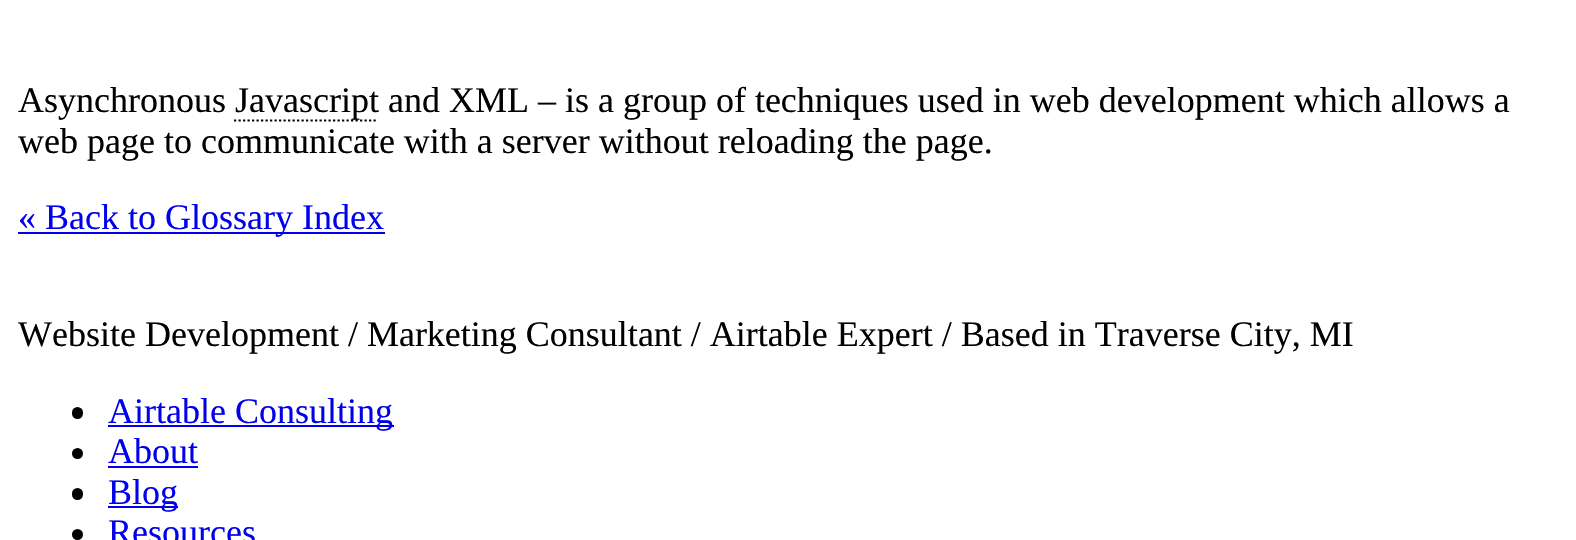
#include "include/core/SkBlurTypes.h"
#include "include/core/SkCanvas.h"
#include "include/core/SkData.h"
#include "include/core/SkFont.h"
#include "include/core/SkFontMgr.h"
#include "include/core/SkImage.h"
#include "include/core/SkMaskFilter.h"
#include "include/core/SkPaint.h"
#include "include/core/SkPathBuilder.h"
#include "include/core/SkTextBlob.h"
#include "include/effects/SkDashPathEffect.h"
#include "include/effects/SkGradientShader.h"
#include "include/utils/SkParsePath.h"

extern sk_sp<SkFontMgr> fontMgr;

void draw(SkCanvas* canvas) {
  SkPaint p;
  p.setAntiAlias(true);
  canvas->clear(SK_ColorWHITE);
  p.setStyle(SkPaint::kStroke_Style);
  p.setStrokeWidth(2.2f);
  p.setColor(SK_ColorBLACK);
  p.setPathEffect(SkDashPathEffect::Make({{2.25f, 2.25f}}, 0));
  canvas->drawPath(SkPathBuilder().moveTo(234, 120.5f).lineTo(378, 120.5f).detach(), p);
  p.setPathEffect(nullptr);
  p.setStyle(SkPaint::kFill_Style);
  p.setColor(SkColorSetRGB(0, 0, 238));
  canvas->drawRect(SkRect::MakeLTRB(18, 232, 385, 234), p);
  p.setColor(SK_ColorBLACK);
  canvas->drawRoundRect(SkRect::MakeLTRB(72, 407, 83, 419), 5.5f, 5.5f, p);
  p.setColor(SkColorSetRGB(0, 0, 238));
  canvas->drawRect(SkRect::MakeLTRB(108, 425, 394, 427), p);
  p.setColor(SK_ColorBLACK);
  canvas->drawCircle(77.5f, 453.5f, 5.5f, p);
  p.setColor(SkColorSetRGB(0, 0, 238));
  canvas->drawRect(SkRect::MakeLTRB(108, 466, 198, 468), p);
  p.setColor(SK_ColorBLACK);
  canvas->drawRoundRect(SkRect::MakeLTRB(72, 488, 83, 500), 5.5f, 5.5f, p);
  p.setColor(SkColorSetRGB(0, 0, 238));
  canvas->drawRect(SkRect::MakeLTRB(108, 506, 178, 508), p);
  p.setColor(SK_ColorBLACK);
  canvas->drawCircle(77.5f, 534.5f, 5.5f, p);
  SkFont font1(fontMgr->matchFamilyStyle("Liberation Serif", SkFontStyle::Normal()), 36);
  font1.setSubpixel(true);
  canvas->drawString("Asynchronous", 18, 112, font1, p);
  canvas->drawString("Javascript and XML – is a group of techniques used in web development which allows a", 235, 112, font1, p);
  canvas->drawString("web page to communicate with a server without reloading the page.", 18, 153, font1, p);
  p.setColor(SkColorSetRGB(0, 0, 238));
  canvas->drawString("« Back to Glossary Index", 18, 229, font1, p);
  p.setColor(SK_ColorBLACK);
  canvas->drawString("Website Development / Marketing Consultant / Airtable Expert / Based in Traverse City, MI", 18, 346, font1, p);
  p.setColor(SkColorSetRGB(0, 0, 238));
  canvas->drawString("Airtable Consulting", 108, 423, font1, p);
  canvas->drawString("About", 108, 463, font1, p);
  canvas->drawString("Blog", 108, 504, font1, p);
  canvas->drawString("Resources", 108, 544, font1, p);
}
